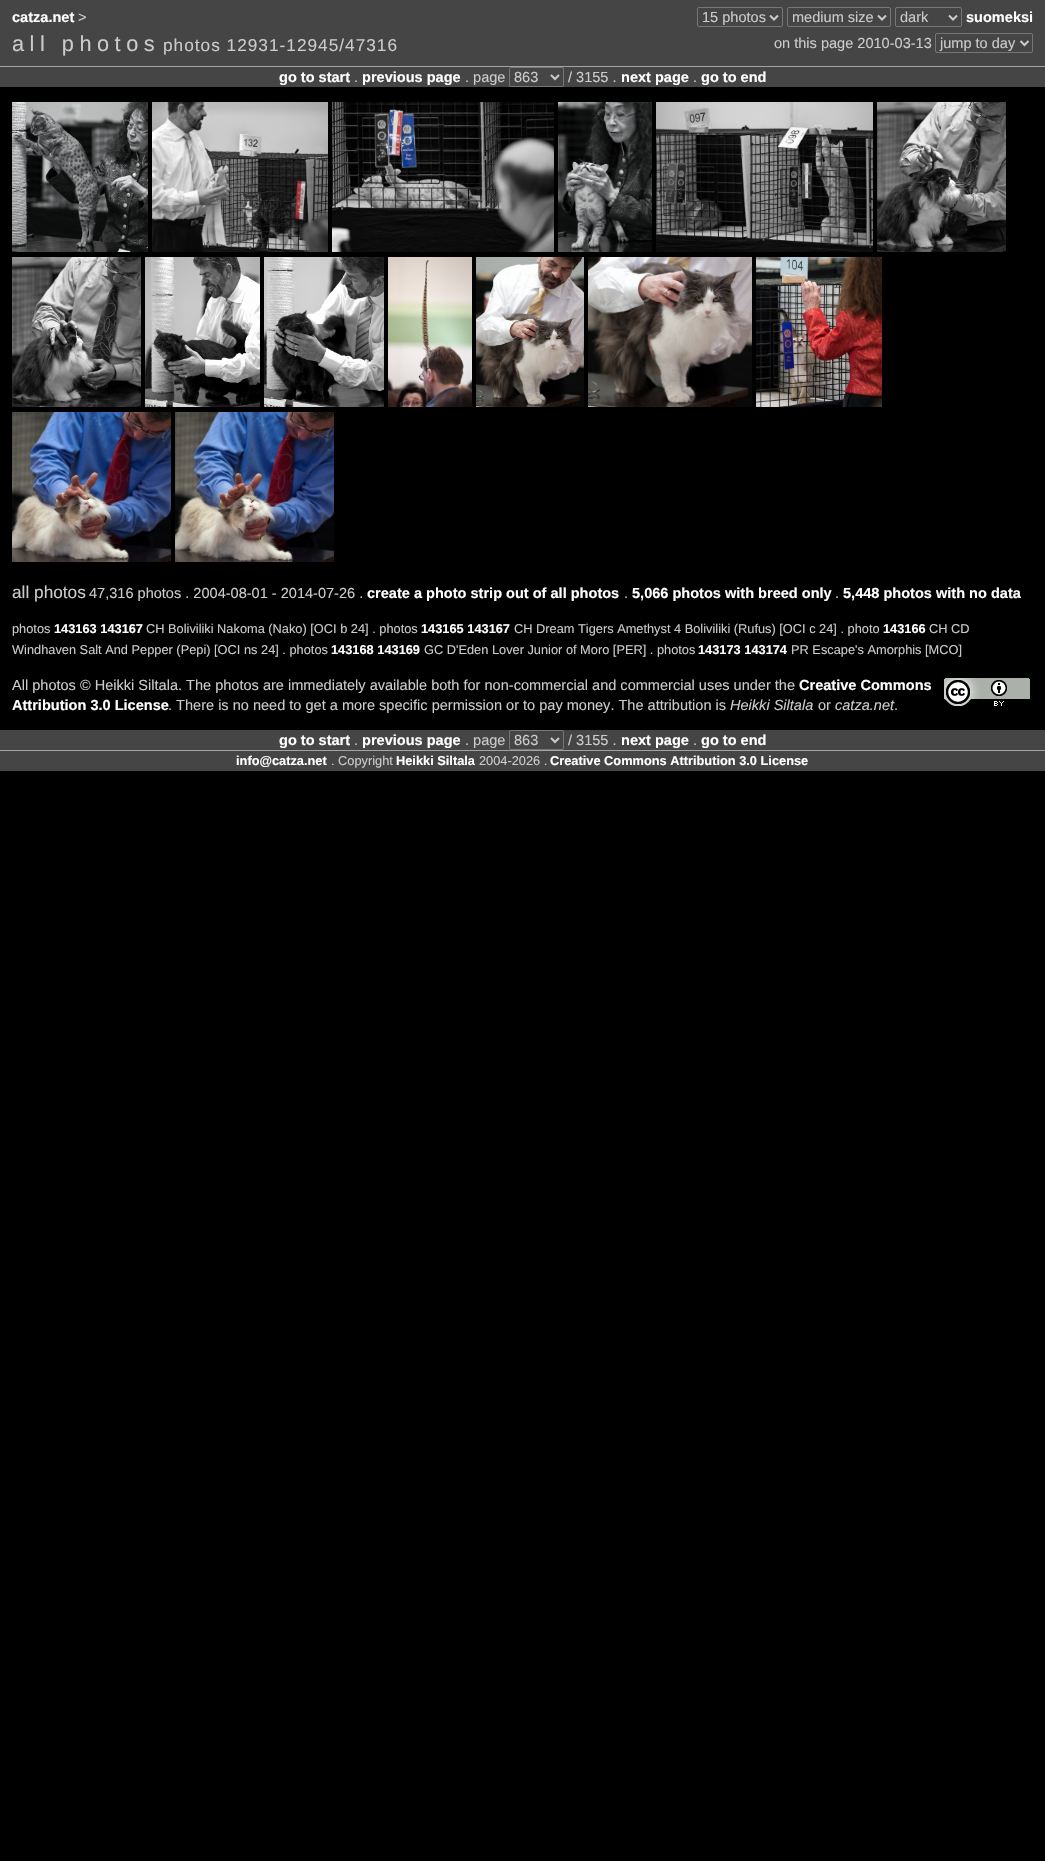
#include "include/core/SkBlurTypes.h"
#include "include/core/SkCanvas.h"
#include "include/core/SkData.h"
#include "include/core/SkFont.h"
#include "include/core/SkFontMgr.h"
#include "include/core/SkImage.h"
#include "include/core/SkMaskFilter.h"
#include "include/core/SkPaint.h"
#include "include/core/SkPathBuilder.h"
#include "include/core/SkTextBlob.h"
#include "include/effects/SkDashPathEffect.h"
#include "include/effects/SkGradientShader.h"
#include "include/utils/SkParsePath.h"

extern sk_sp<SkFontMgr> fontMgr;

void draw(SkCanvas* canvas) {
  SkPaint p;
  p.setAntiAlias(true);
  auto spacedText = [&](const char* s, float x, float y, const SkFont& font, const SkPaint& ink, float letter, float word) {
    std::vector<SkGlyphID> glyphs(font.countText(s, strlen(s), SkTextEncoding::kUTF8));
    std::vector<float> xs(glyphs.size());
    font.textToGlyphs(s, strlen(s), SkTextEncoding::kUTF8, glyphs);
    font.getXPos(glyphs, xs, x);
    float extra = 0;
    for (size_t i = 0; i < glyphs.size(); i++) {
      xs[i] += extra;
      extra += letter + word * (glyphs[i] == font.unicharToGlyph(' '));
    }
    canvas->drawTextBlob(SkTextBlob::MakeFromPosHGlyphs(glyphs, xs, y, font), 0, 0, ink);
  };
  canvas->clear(SK_ColorBLACK);
  p.setColor(SkColorSetRGB(69, 69, 69));
  canvas->drawRect(SkRect::MakeLTRB(0, 0, 1045, 87), p);
  p.setStyle(SkPaint::kStroke_Style);
  p.setStrokeWidth(1);
  p.setColor(SkColorSetRGB(118, 118, 118));
  canvas->drawRoundRect(SkRect::MakeLTRB(697.5f, 7.5f, 782.5f, 26.5f), 1.5f, 1.5f, p);
  p.setStrokeWidth(2);
  p.setColor(SkColorSetRGB(203, 203, 203));
  canvas->drawPath(SkPathBuilder().moveTo(770, 15.5f).lineTo(774, 19.5f).lineTo(778, 15.5f).detach(), p);
  p.setStrokeWidth(1);
  p.setColor(SkColorSetRGB(118, 118, 118));
  canvas->drawRoundRect(SkRect::MakeLTRB(787.5f, 7.5f, 890.5f, 26.5f), 1.5f, 1.5f, p);
  p.setStrokeWidth(2);
  p.setColor(SkColorSetRGB(203, 203, 203));
  canvas->drawPath(SkPathBuilder().moveTo(878, 15.5f).lineTo(882, 19.5f).lineTo(886, 15.5f).detach(), p);
  p.setStrokeWidth(1);
  p.setColor(SkColorSetRGB(118, 118, 118));
  canvas->drawRoundRect(SkRect::MakeLTRB(895.5f, 7.5f, 961.5f, 26.5f), 1.5f, 1.5f, p);
  p.setStrokeWidth(2);
  p.setColor(SkColorSetRGB(203, 203, 203));
  canvas->drawPath(SkPathBuilder().moveTo(949, 15.5f).lineTo(953, 19.5f).lineTo(957, 15.5f).detach(), p);
  p.setStrokeWidth(1);
  p.setColor(SkColorSetRGB(118, 118, 118));
  canvas->drawRoundRect(SkRect::MakeLTRB(935.5f, 33.5f, 1032.5f, 52.5f), 1.5f, 1.5f, p);
  p.setStrokeWidth(2);
  p.setColor(SkColorSetRGB(203, 203, 203));
  canvas->drawPath(SkPathBuilder().moveTo(1020.5f, 41).lineTo(1024.5f, 45).lineTo(1028.5f, 41).detach(), p);
  p.setStyle(SkPaint::kFill_Style);
  p.setColor(SkColorSetRGB(163, 163, 163));
  canvas->drawRect(SkRect::MakeLTRB(0, 66, 1045, 67), p);
  p.setStyle(SkPaint::kStroke_Style);
  p.setStrokeWidth(1);
  p.setColor(SkColorSetRGB(118, 118, 118));
  canvas->drawRoundRect(SkRect::MakeLTRB(509.5f, 67.5f, 563.5f, 86.5f), 1.5f, 1.5f, p);
  p.setStrokeWidth(2);
  p.setColor(SkColorSetRGB(203, 203, 203));
  canvas->drawPath(SkPathBuilder().moveTo(551, 75).lineTo(555, 79).lineTo(559, 75).detach(), p);
  canvas->drawImageRect(SkImages::DeferredFromEncodedData(SkData::MakeFromFileName("images/1.png")), SkRect::MakeLTRB(12, 102, 148, 252), SkSamplingOptions());
  canvas->drawImageRect(SkImages::DeferredFromEncodedData(SkData::MakeFromFileName("images/2.png")), SkRect::MakeLTRB(152, 102, 328, 252), SkSamplingOptions());
  canvas->drawImageRect(SkImages::DeferredFromEncodedData(SkData::MakeFromFileName("images/3.png")), SkRect::MakeLTRB(332, 102, 554, 252), SkSamplingOptions());
  canvas->drawImageRect(SkImages::DeferredFromEncodedData(SkData::MakeFromFileName("images/4.png")), SkRect::MakeLTRB(558, 102, 652, 252), SkSamplingOptions());
  canvas->drawImageRect(SkImages::DeferredFromEncodedData(SkData::MakeFromFileName("images/5.png")), SkRect::MakeLTRB(656, 102, 873, 252), SkSamplingOptions());
  canvas->drawImageRect(SkImages::DeferredFromEncodedData(SkData::MakeFromFileName("images/6.png")), SkRect::MakeLTRB(877, 102, 1006, 252), SkSamplingOptions());
  canvas->drawImageRect(SkImages::DeferredFromEncodedData(SkData::MakeFromFileName("images/7.png")), SkRect::MakeLTRB(12, 257, 141, 407), SkSamplingOptions());
  canvas->drawImageRect(SkImages::DeferredFromEncodedData(SkData::MakeFromFileName("images/8.png")), SkRect::MakeLTRB(145, 257, 260, 407), SkSamplingOptions());
  canvas->drawImageRect(SkImages::DeferredFromEncodedData(SkData::MakeFromFileName("images/9.png")), SkRect::MakeLTRB(264, 257, 384, 407), SkSamplingOptions());
  canvas->drawImageRect(SkImages::DeferredFromEncodedData(SkData::MakeFromFileName("images/10.png")), SkRect::MakeLTRB(388, 257, 472, 407), SkSamplingOptions());
  canvas->drawImageRect(SkImages::DeferredFromEncodedData(SkData::MakeFromFileName("images/11.png")), SkRect::MakeLTRB(476, 257, 584, 407), SkSamplingOptions());
  canvas->drawImageRect(SkImages::DeferredFromEncodedData(SkData::MakeFromFileName("images/12.png")), SkRect::MakeLTRB(588, 257, 752, 407), SkSamplingOptions());
  canvas->drawImageRect(SkImages::DeferredFromEncodedData(SkData::MakeFromFileName("images/13.png")), SkRect::MakeLTRB(756, 257, 882, 407), SkSamplingOptions());
  canvas->drawImageRect(SkImages::DeferredFromEncodedData(SkData::MakeFromFileName("images/14.png")), SkRect::MakeLTRB(12, 412, 171, 562), SkSamplingOptions());
  canvas->drawImageRect(SkImages::DeferredFromEncodedData(SkData::MakeFromFileName("images/15.png")), SkRect::MakeLTRB(175, 412, 334, 562), SkSamplingOptions());
  canvas->drawImageRect(SkImages::DeferredFromEncodedData(SkData::MakeFromFileName("images/16.png")), SkRect::MakeLTRB(943, 677, 1030, 708), SkSamplingOptions());
  p.setStyle(SkPaint::kFill_Style);
  p.setColor(SkColorSetRGB(69, 69, 69));
  canvas->drawRect(SkRect::MakeLTRB(0, 730, 1045, 771), p);
  p.setColor(SkColorSetRGB(163, 163, 163));
  canvas->drawRect(SkRect::MakeLTRB(0, 750, 1045, 751), p);
  p.setStyle(SkPaint::kStroke_Style);
  p.setStrokeWidth(1);
  p.setColor(SkColorSetRGB(118, 118, 118));
  canvas->drawRoundRect(SkRect::MakeLTRB(509.5f, 730.5f, 563.5f, 749.5f), 1.5f, 1.5f, p);
  p.setStrokeWidth(2);
  p.setColor(SkColorSetRGB(203, 203, 203));
  canvas->drawPath(SkPathBuilder().moveTo(551, 738).lineTo(555, 742).lineTo(559, 738).detach(), p);
  SkFont font1(fontMgr->matchFamilyStyle("Liberation Sans", SkFontStyle::Bold()), 14.55f);
  font1.setSubpixel(true);
  p.setStyle(SkPaint::kFill_Style);
  p.setColor(SK_ColorWHITE);
  canvas->drawString("catza.net", 12, 22, font1, p);
  SkFont font2(fontMgr->matchFamilyStyle("Liberation Sans", SkFontStyle::Normal()), 14.55f);
  font2.setSubpixel(true);
  p.setColor(SkColorSetRGB(203, 203, 203));
  canvas->drawString(">", 78, 22, font2, p);
  canvas->drawString("15 photos", 702, 22, font2, p);
  canvas->drawString("medium size", 792, 22, font2, p);
  canvas->drawString("dark", 900, 22, font2, p);
  p.setColor(SK_ColorWHITE);
  canvas->drawString("suomeksi", 966, 22, font1, p);
  SkFont font3(fontMgr->matchFamilyStyle("Liberation Sans", SkFontStyle::Normal()), 21.75f);
  font3.setSubpixel(true);
  p.setColor(SkColorSetRGB(203, 203, 203));
  spacedText("all photos", 12, 51, font3, p, 5.5f, 0);
  SkFont font4(fontMgr->matchFamilyStyle("Liberation Sans", SkFontStyle::Normal()), 17.25f);
  font4.setSubpixel(true);
  spacedText("photos 12931-12945/47316", 163, 51, font4, p, 1, 0);
  canvas->drawString("on this page 2010-03-13", 774, 48, font2, p);
  canvas->drawString("jump to day", 940, 48, font2, p);
  p.setColor(SK_ColorWHITE);
  canvas->drawString("go to start", 279, 82, font1, p);
  p.setColor(SkColorSetRGB(203, 203, 203));
  canvas->drawString(".", 354, 82, font2, p);
  p.setColor(SK_ColorWHITE);
  canvas->drawString("previous page", 362, 82, font1, p);
  p.setColor(SkColorSetRGB(203, 203, 203));
  canvas->drawString(". page", 465, 82, font2, p);
  canvas->drawString("863", 514, 82, font2, p);
  canvas->drawString("/ 3155 .", 568, 82, font2, p);
  p.setColor(SK_ColorWHITE);
  canvas->drawString("next page", 621, 82, font1, p);
  p.setColor(SkColorSetRGB(203, 203, 203));
  canvas->drawString(".", 693, 82, font2, p);
  p.setColor(SK_ColorWHITE);
  canvas->drawString("go to end", 701, 82, font1, p);
  p.setColor(SkColorSetRGB(203, 203, 203));
  canvas->drawString("all photos", 12, 598, font4, p);
  canvas->drawString("47,316 photos . 2004-08-01 - 2014-07-26 .", 89, 598, font2, p);
  p.setColor(SK_ColorWHITE);
  canvas->drawString("create a photo strip out of all photos", 367, 598, font1, p);
  p.setColor(SkColorSetRGB(203, 203, 203));
  canvas->drawString(".", 624, 598, font2, p);
  p.setColor(SK_ColorWHITE);
  canvas->drawString("5,066 photos with breed only", 632, 598, font1, p);
  p.setColor(SkColorSetRGB(203, 203, 203));
  canvas->drawString(".", 835, 598, font2, p);
  p.setColor(SK_ColorWHITE);
  canvas->drawString("5,448 photos with no data", 843, 598, font1, p);
  SkFont font5(fontMgr->matchFamilyStyle("Liberation Sans", SkFontStyle::Normal()), 12.8f);
  font5.setSubpixel(true);
  p.setColor(SkColorSetRGB(203, 203, 203));
  canvas->drawString("photos", 12, 633, font5, p);
  SkFont font6(fontMgr->matchFamilyStyle("Liberation Sans", SkFontStyle::Bold()), 12.8f);
  font6.setSubpixel(true);
  p.setColor(SK_ColorWHITE);
  canvas->drawString("143163 143167", 54, 633, font6, p);
  p.setColor(SkColorSetRGB(203, 203, 203));
  canvas->drawString("CH Boliviliki Nakoma (Nako) [OCI b 24] . photos", 146, 633, font5, p);
  p.setColor(SK_ColorWHITE);
  canvas->drawString("143165 143167", 421, 633, font6, p);
  p.setColor(SkColorSetRGB(203, 203, 203));
  canvas->drawString("CH Dream Tigers Amethyst 4 Boliviliki (Rufus) [OCI c 24] . photo", 514, 633, font5, p);
  p.setColor(SK_ColorWHITE);
  canvas->drawString("143166", 883, 633, font6, p);
  p.setColor(SkColorSetRGB(203, 203, 203));
  canvas->drawString("CH CD", 929, 633, font5, p);
  canvas->drawString("Windhaven Salt And Pepper (Pepi) [OCI ns 24] . photos", 12, 654, font5, p);
  p.setColor(SK_ColorWHITE);
  canvas->drawString("143168 143169", 331, 654, font6, p);
  p.setColor(SkColorSetRGB(203, 203, 203));
  canvas->drawString("GC D'Eden Lover Junior of Moro [PER] . photos", 424, 654, font5, p);
  p.setColor(SK_ColorWHITE);
  canvas->drawString("143173 143174", 698, 654, font6, p);
  p.setColor(SkColorSetRGB(203, 203, 203));
  canvas->drawString("PR Escape's Amorphis [MCO]", 791, 654, font5, p);
  canvas->drawString("All photos © Heikki Siltala. The photos are immediately available both for non-commercial and commercial uses under the", 12, 690, font2, p);
  p.setColor(SK_ColorWHITE);
  canvas->drawString("Creative Commons", 799, 690, font1, p);
  canvas->drawString("Attribution 3.0 License", 12, 710, font1, p);
  p.setColor(SkColorSetRGB(203, 203, 203));
  canvas->drawString(". There is no need to get a more specific permission or to pay money. The attribution is", 168, 710, font2, p);
  SkFont font7(fontMgr->matchFamilyStyle("Liberation Sans", SkFontStyle::Italic()), 14.55f);
  font7.setSubpixel(true);
  canvas->drawString("Heikki Siltala", 730, 710, font7, p);
  canvas->drawString("or", 818, 710, font2, p);
  canvas->drawString("catza.net", 835, 710, font7, p);
  canvas->drawString(".", 894, 710, font2, p);
  p.setColor(SK_ColorWHITE);
  canvas->drawString("go to start", 279, 745, font1, p);
  p.setColor(SkColorSetRGB(203, 203, 203));
  canvas->drawString(".", 354, 745, font2, p);
  p.setColor(SK_ColorWHITE);
  canvas->drawString("previous page", 362, 745, font1, p);
  p.setColor(SkColorSetRGB(203, 203, 203));
  canvas->drawString(". page", 465, 745, font2, p);
  canvas->drawString("863", 514, 745, font2, p);
  canvas->drawString("/ 3155 .", 568, 745, font2, p);
  p.setColor(SK_ColorWHITE);
  canvas->drawString("next page", 621, 745, font1, p);
  p.setColor(SkColorSetRGB(203, 203, 203));
  canvas->drawString(".", 693, 745, font2, p);
  p.setColor(SK_ColorWHITE);
  canvas->drawString("go to end", 701, 745, font1, p);
  canvas->drawString("info@catza.net", 236, 765, font6, p);
  p.setColor(SkColorSetRGB(203, 203, 203));
  canvas->drawString(". Copyright", 331, 765, font5, p);
  p.setColor(SK_ColorWHITE);
  canvas->drawString("Heikki Siltala", 396, 765, font6, p);
  p.setColor(SkColorSetRGB(203, 203, 203));
  canvas->drawString("2004-2026 .", 479, 765, font5, p);
  p.setColor(SK_ColorWHITE);
  canvas->drawString("Creative Commons Attribution 3.0 License", 550, 765, font6, p);
}
